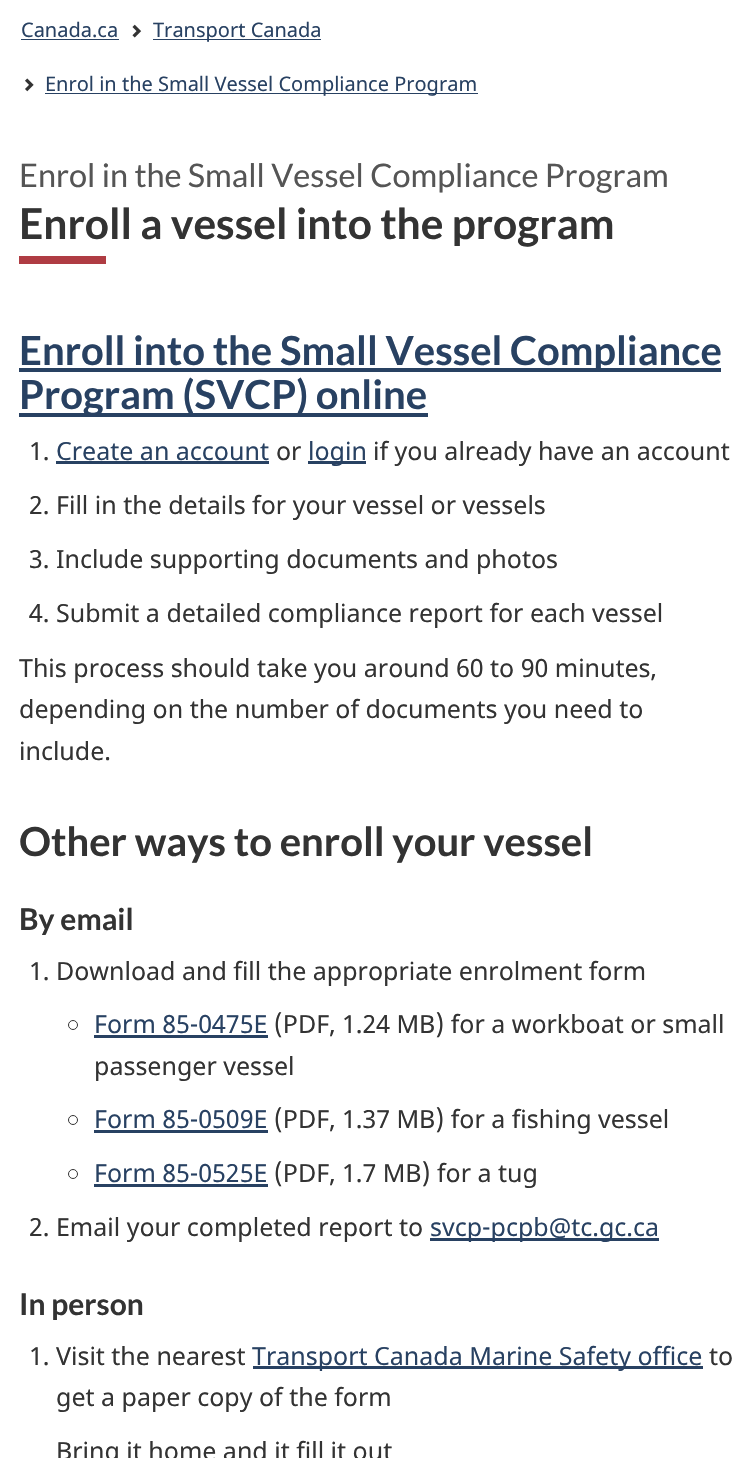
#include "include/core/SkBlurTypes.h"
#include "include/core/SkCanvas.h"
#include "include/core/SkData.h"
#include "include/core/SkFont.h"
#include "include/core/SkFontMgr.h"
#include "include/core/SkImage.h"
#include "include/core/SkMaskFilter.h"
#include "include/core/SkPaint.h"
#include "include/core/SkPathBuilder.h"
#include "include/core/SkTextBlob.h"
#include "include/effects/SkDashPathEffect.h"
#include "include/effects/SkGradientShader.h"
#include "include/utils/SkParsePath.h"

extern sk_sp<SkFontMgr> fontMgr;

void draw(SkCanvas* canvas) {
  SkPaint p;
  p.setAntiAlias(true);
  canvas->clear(SK_ColorWHITE);
  p.setColor(SkColorSetRGB(40, 65, 98));
  canvas->drawRect(SkRect::MakeLTRB(21, 39, 119, 40), p);
  canvas->drawImageRect(SkImages::DeferredFromEncodedData(SkData::MakeFromFileName("images/1.png")), SkRect::MakeLTRB(132, 24, 142, 38), SkSamplingOptions());
  canvas->drawRect(SkRect::MakeLTRB(153, 39, 321, 40), p);
  canvas->drawImageRect(SkImages::DeferredFromEncodedData(SkData::MakeFromFileName("images/2.png")), SkRect::MakeLTRB(25, 78, 34, 92), SkSamplingOptions());
  canvas->drawRect(SkRect::MakeLTRB(45, 93, 478, 94), p);
  p.setColor(SkColorSetRGB(175, 60, 67));
  canvas->drawRect(SkRect::MakeLTRB(19, 256, 106, 264), p);
  p.setColor(SkColorSetRGB(40, 65, 98));
  canvas->drawRect(SkRect::MakeLTRB(19, 368, 721, 372), p);
  canvas->drawRect(SkRect::MakeLTRB(19, 413, 428, 417), p);
  canvas->drawRect(SkRect::MakeLTRB(56, 461, 269, 464), p);
  canvas->drawRect(SkRect::MakeLTRB(308, 461, 366, 464), p);
  p.setStyle(SkPaint::kStroke_Style);
  p.setStrokeWidth(1);
  p.setColor(SkColorSetRGB(51, 51, 51));
  canvas->drawCircle(73, 1025, 4.5f, p);
  p.setStyle(SkPaint::kFill_Style);
  p.setColor(SkColorSetRGB(40, 65, 98));
  canvas->drawRect(SkRect::MakeLTRB(94, 1035, 268, 1038), p);
  p.setStyle(SkPaint::kStroke_Style);
  p.setColor(SkColorSetRGB(51, 51, 51));
  canvas->drawCircle(73, 1120, 4.5f, p);
  p.setStyle(SkPaint::kFill_Style);
  p.setColor(SkColorSetRGB(40, 65, 98));
  canvas->drawRect(SkRect::MakeLTRB(94, 1130, 268, 1133), p);
  p.setStyle(SkPaint::kStroke_Style);
  p.setColor(SkColorSetRGB(51, 51, 51));
  canvas->drawCircle(73, 1174, 4.5f, p);
  p.setStyle(SkPaint::kFill_Style);
  p.setColor(SkColorSetRGB(40, 65, 98));
  canvas->drawRect(SkRect::MakeLTRB(94, 1184, 268, 1187), p);
  canvas->drawRect(SkRect::MakeLTRB(430, 1238, 659, 1241), p);
  canvas->drawRect(SkRect::MakeLTRB(253, 1366, 703, 1369), p);
  SkFont font1(fontMgr->matchFamilyStyle("Noto Sans", SkFontStyle::Normal()), 20);
  font1.setSubpixel(true);
  canvas->drawString("Canada.ca", 21, 37, font1, p);
  canvas->drawString("Transport Canada", 153, 37, font1, p);
  canvas->drawString("Enrol in the Small Vessel Compliance Program", 45, 91, font1, p);
  SkFont font2(fontMgr->matchFamilyStyle("Lato", SkFontStyle::Normal()), 32.5f);
  font2.setSubpixel(true);
  p.setColor(SkColorSetRGB(85, 85, 85));
  canvas->drawString("Enrol in the Small Vessel Compliance Program", 19, 187, font2, p);
  SkFont font3(fontMgr->matchFamilyStyle("Lato", SkFontStyle::Bold()), 42.5f);
  font3.setSubpixel(true);
  p.setColor(SkColorSetRGB(51, 51, 51));
  canvas->drawString("Enroll a vessel into the program", 19, 239, font3, p);
  SkFont font4(fontMgr->matchFamilyStyle("Lato", SkFontStyle::Bold()), 40);
  font4.setSubpixel(true);
  p.setColor(SkColorSetRGB(40, 65, 98));
  canvas->drawString("Enroll into the Small Vessel Compliance", 19, 365, font4, p);
  canvas->drawString("Program (SVCP) online", 19, 409, font4, p);
  SkFont font5(fontMgr->matchFamilyStyle("Noto Sans", SkFontStyle::Normal()), 25);
  font5.setSubpixel(true);
  p.setColor(SkColorSetRGB(51, 51, 51));
  canvas->drawString("1.", 29, 460, font5, p);
  p.setColor(SkColorSetRGB(40, 65, 98));
  canvas->drawString("Create an account", 56, 460, font5, p);
  p.setColor(SkColorSetRGB(51, 51, 51));
  canvas->drawString("or", 276, 460, font5, p);
  p.setColor(SkColorSetRGB(40, 65, 98));
  canvas->drawString("login", 308, 460, font5, p);
  p.setColor(SkColorSetRGB(51, 51, 51));
  canvas->drawString("if you already have an account", 373, 460, font5, p);
  canvas->drawString("2. Fill in the details for your vessel or vessels", 29, 514, font5, p);
  canvas->drawString("3. Include supporting documents and photos", 29, 568, font5, p);
  canvas->drawString("4. Submit a detailed compliance report for each vessel", 29, 622, font5, p);
  canvas->drawString("This process should take you around 60 to 90 minutes,", 19, 677, font5, p);
  canvas->drawString("depending on the number of documents you need to", 19, 718, font5, p);
  canvas->drawString("include.", 19, 760, font5, p);
  canvas->drawString("Other ways to enroll your vessel", 19, 856, font4, p);
  SkFont font6(fontMgr->matchFamilyStyle("Lato", SkFontStyle::Bold()), 30);
  font6.setSubpixel(true);
  canvas->drawString("By email", 19, 930, font6, p);
  canvas->drawString("1. Download and fill the appropriate enrolment form", 29, 980, font5, p);
  p.setColor(SkColorSetRGB(40, 65, 98));
  canvas->drawString("Form 85-0475E", 94, 1033, font5, p);
  p.setColor(SkColorSetRGB(51, 51, 51));
  canvas->drawString("(PDF, 1.24 MB) for a workboat or small", 274, 1033, font5, p);
  canvas->drawString("passenger vessel", 94, 1075, font5, p);
  p.setColor(SkColorSetRGB(40, 65, 98));
  canvas->drawString("Form 85-0509E", 94, 1128, font5, p);
  p.setColor(SkColorSetRGB(51, 51, 51));
  canvas->drawString("(PDF, 1.37 MB) for a fishing vessel", 274, 1128, font5, p);
  p.setColor(SkColorSetRGB(40, 65, 98));
  canvas->drawString("Form 85-0525E", 94, 1182, font5, p);
  p.setColor(SkColorSetRGB(51, 51, 51));
  canvas->drawString("(PDF, 1.7 MB) for a tug", 274, 1182, font5, p);
  canvas->drawString("2. Email your completed report to", 29, 1236, font5, p);
  p.setColor(SkColorSetRGB(40, 65, 98));
  canvas->drawString("svcp-pcpb@tc.gc.ca", 430, 1236, font5, p);
  p.setColor(SkColorSetRGB(51, 51, 51));
  canvas->drawString("In person", 19, 1315, font6, p);
  canvas->drawString("1. Visit the nearest", 29, 1365, font5, p);
  p.setColor(SkColorSetRGB(40, 65, 98));
  canvas->drawString("Transport Canada Marine Safety office", 252, 1365, font5, p);
  p.setColor(SkColorSetRGB(51, 51, 51));
  canvas->drawString("to", 709, 1365, font5, p);
  canvas->drawString("get a paper copy of the form", 56, 1406, font5, p);
  canvas->drawString("Bring it home and it fill it out", 56, 1460, font5, p);
}
